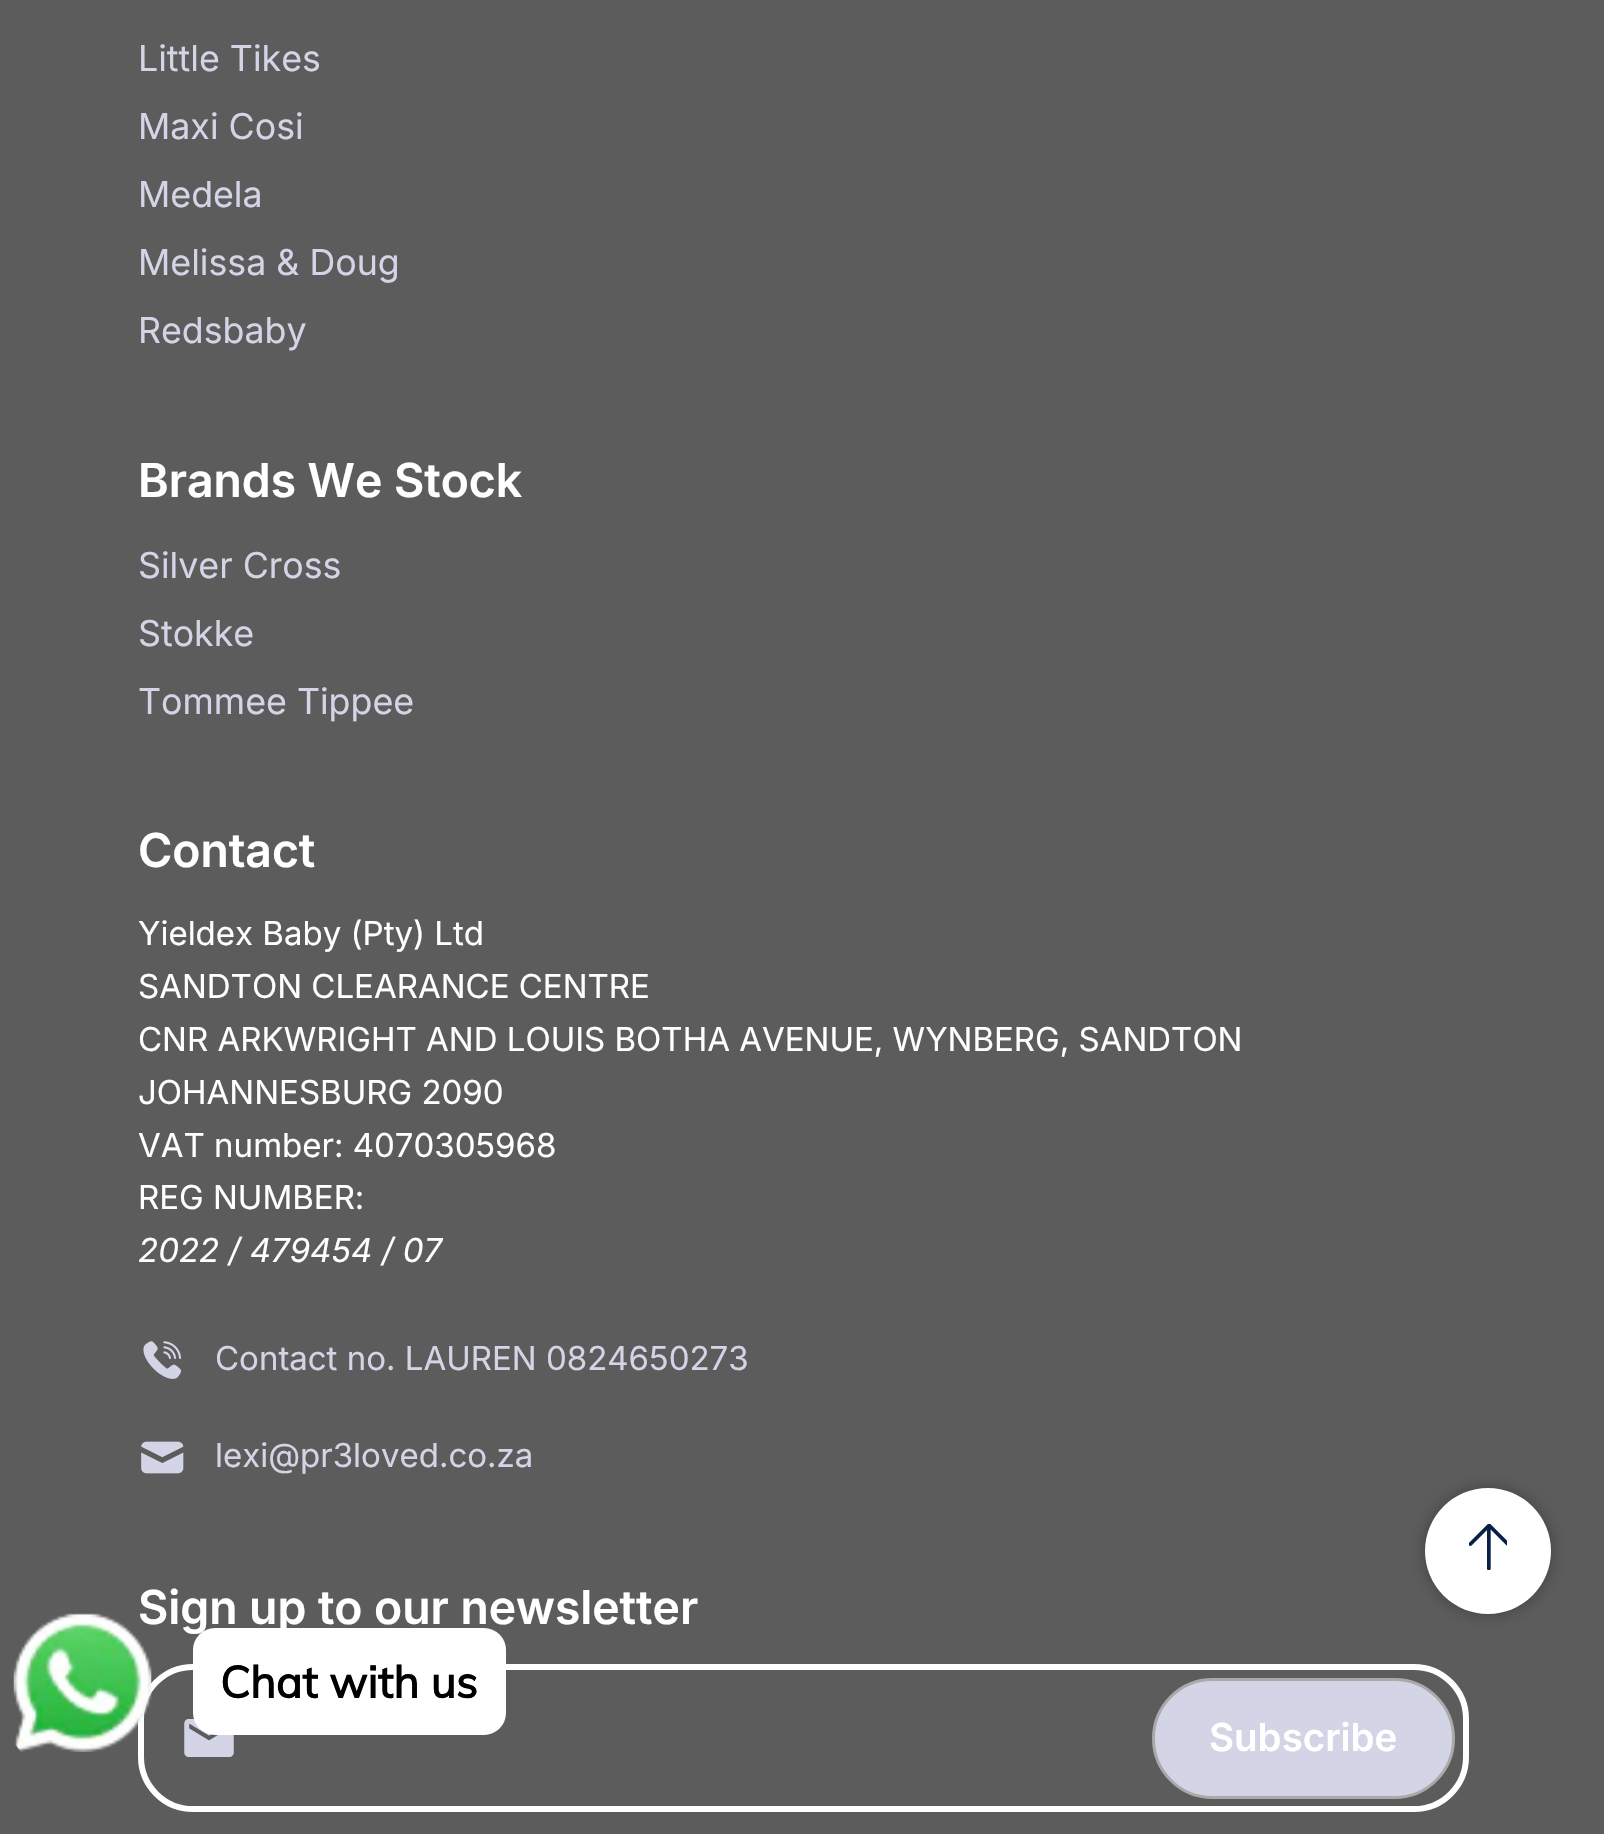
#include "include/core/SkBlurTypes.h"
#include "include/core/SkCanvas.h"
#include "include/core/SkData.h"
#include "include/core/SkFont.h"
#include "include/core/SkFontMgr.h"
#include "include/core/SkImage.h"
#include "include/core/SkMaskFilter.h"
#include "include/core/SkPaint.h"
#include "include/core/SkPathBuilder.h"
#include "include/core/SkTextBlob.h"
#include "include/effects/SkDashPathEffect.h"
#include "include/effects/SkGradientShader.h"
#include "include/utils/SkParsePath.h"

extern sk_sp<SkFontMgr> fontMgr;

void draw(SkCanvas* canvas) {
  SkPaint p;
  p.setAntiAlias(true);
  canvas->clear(SkColorSetRGB(92, 92, 92));
  canvas->drawImageRect(SkImages::DeferredFromEncodedData(SkData::MakeFromFileName("images/1.png")), SkRect::MakeLTRB(143, 1341, 182, 1379), SkSamplingOptions());
  canvas->drawImageRect(SkImages::DeferredFromEncodedData(SkData::MakeFromFileName("images/2.png")), SkRect::MakeLTRB(141, 1441, 184, 1474), SkSamplingOptions());
  p.setStyle(SkPaint::kStroke_Style);
  p.setStrokeWidth(6);
  p.setColor(SK_ColorWHITE);
  canvas->drawRoundRect(SkRect::MakeLTRB(141, 1667, 1466, 1809), 52, 52, p);
  canvas->drawImageRect(SkImages::DeferredFromEncodedData(SkData::MakeFromFileName("images/3.png")), SkRect::MakeLTRB(184, 1719, 234, 1757), SkSamplingOptions());
  p.setStyle(SkPaint::kFill_Style);
  p.setColor(SkColorSetRGB(212, 212, 231));
  canvas->drawRoundRect(SkRect::MakeLTRB(1153.5f, 1679.5f, 1453.5f, 1797.5f), 59, 59, p);
  p.setStyle(SkPaint::kStroke_Style);
  p.setStrokeWidth(3);
  p.setColor(SkColorSetRGB(170, 170, 170));
  canvas->drawRoundRect(SkRect::MakeLTRB(1153.5f, 1679.5f, 1453.5f, 1797.5f), 59, 59, p);
  p.setStyle(SkPaint::kFill_Style);
  p.setColor(SkColorSetARGB(77, 0, 0, 0));
  p.setMaskFilter(SkMaskFilter::MakeBlur(kNormal_SkBlurStyle, 8));
  canvas->drawRoundRect(SkRect::MakeLTRB(1425, 1488, 1551, 1614), 63, 63, p);
  p.setMaskFilter(nullptr);
  p.setColor(SK_ColorWHITE);
  canvas->drawCircle(1488, 1551, 63, p);
  canvas->drawImageRect(SkImages::DeferredFromEncodedData(SkData::MakeFromFileName("images/4.png")), SkRect::MakeLTRB(1469, 1524, 1507, 1570), SkSamplingOptions());
  canvas->drawRoundRect(SkRect::MakeLTRB(193, 1628, 506, 1735), 22, 22, p);
  SkFont font1(fontMgr->matchFamilyStyle("Inter", SkFontStyle::Normal()), 35.75f);
  font1.setSubpixel(true);
  p.setColor(SkColorSetRGB(212, 212, 231));
  canvas->drawString("Little Tikes", 138, 71, font1, p);
  canvas->drawString("Maxi Cosi", 138, 139, font1, p);
  canvas->drawString("Medela", 138, 207, font1, p);
  canvas->drawString("Melissa & Doug", 138, 275, font1, p);
  canvas->drawString("Redsbaby", 138, 343, font1, p);
  SkFont font2(fontMgr->matchFamilyStyle("Inter", SkFontStyle(600, SkFontStyle::kNormal_Width, SkFontStyle::kUpright_Slant)), 46.75f);
  font2.setSubpixel(true);
  p.setColor(SK_ColorWHITE);
  canvas->drawString("Brands We Stock", 138, 497, font2, p);
  p.setColor(SkColorSetRGB(212, 212, 231));
  canvas->drawString("Silver Cross", 138, 578, font1, p);
  canvas->drawString("Stokke", 138, 646, font1, p);
  canvas->drawString("Tommee Tippee", 138, 714, font1, p);
  p.setColor(SK_ColorWHITE);
  canvas->drawString("Contact", 138, 867, font2, p);
  SkFont font3(fontMgr->matchFamilyStyle("Inter", SkFontStyle::Normal()), 33);
  font3.setSubpixel(true);
  canvas->drawString("Yieldex Baby (Pty) Ltd", 138, 945, font3, p);
  canvas->drawString("SANDTON CLEARANCE CENTRE", 138, 998, font3, p);
  canvas->drawString("CNR ARKWRIGHT AND LOUIS BOTHA AVENUE, WYNBERG, SANDTON", 138, 1051, font3, p);
  canvas->drawString("JOHANNESBURG 2090", 138, 1104, font3, p);
  canvas->drawString("VAT number: 4070305968", 138, 1157, font3, p);
  canvas->drawString("REG NUMBER:", 138, 1209, font3, p);
  SkFont font4(fontMgr->matchFamilyStyle("Inter", SkFontStyle::Italic()), 33);
  font4.setSubpixel(true);
  canvas->drawString("2022 / 479454 / 07", 138, 1262, font4, p);
  p.setColor(SkColorSetRGB(212, 212, 231));
  canvas->drawString("Contact no. LAUREN 0824650273", 215, 1370, font3, p);
  canvas->drawString("lexi@pr3loved.co.za", 215, 1467, font3, p);
  p.setColor(SK_ColorWHITE);
  canvas->drawString("Sign up to our newsletter", 138, 1624, font2, p);
  SkFont font5(fontMgr->matchFamilyStyle("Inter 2", SkFontStyle(600, SkFontStyle::kNormal_Width, SkFontStyle::kUpright_Slant)), 38.5f);
  font5.setSubpixel(true);
  canvas->drawString("Subscribe", 1209, 1751, font5, p);
  canvas->drawImageRect(SkImages::DeferredFromEncodedData(SkData::MakeFromFileName("images/5.png")), SkRect::MakeLTRB(13, 1613, 152, 1752), SkSamplingOptions());
  SkFont font6(fontMgr->matchFamilyStyle("Muli", SkFontStyle::Bold()), 44);
  font6.setSubpixel(true);
  p.setColor(SK_ColorBLACK);
  canvas->drawString("Chat with us", 220, 1698, font6, p);
}
